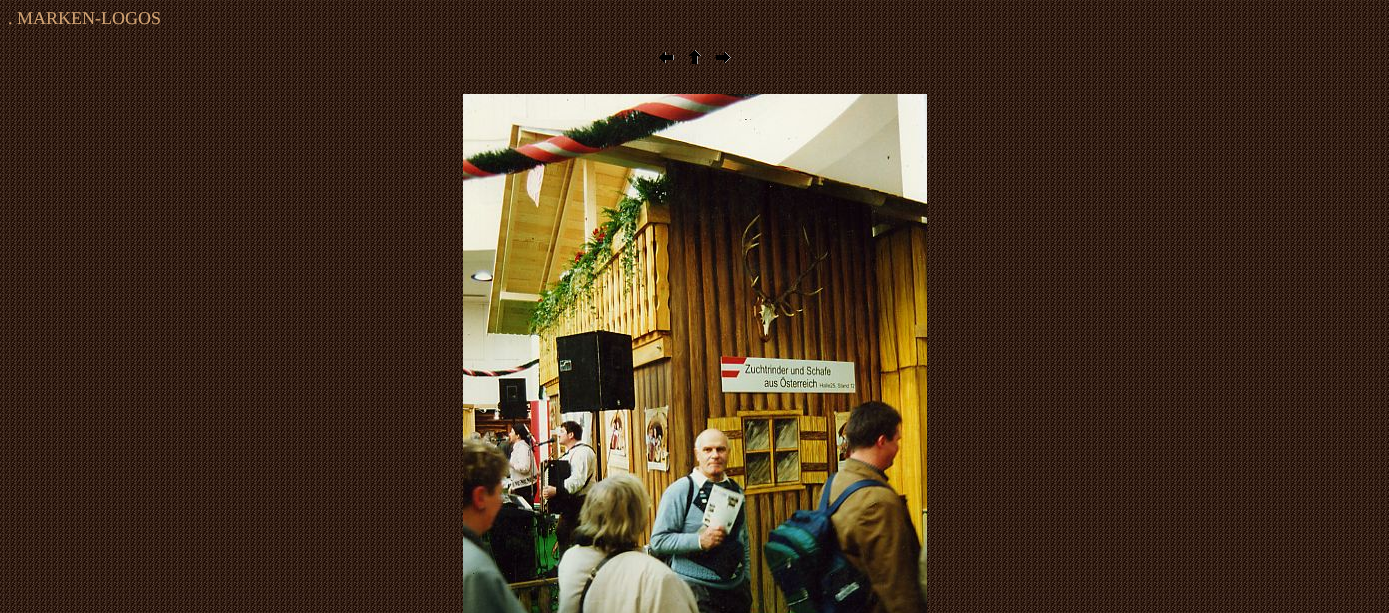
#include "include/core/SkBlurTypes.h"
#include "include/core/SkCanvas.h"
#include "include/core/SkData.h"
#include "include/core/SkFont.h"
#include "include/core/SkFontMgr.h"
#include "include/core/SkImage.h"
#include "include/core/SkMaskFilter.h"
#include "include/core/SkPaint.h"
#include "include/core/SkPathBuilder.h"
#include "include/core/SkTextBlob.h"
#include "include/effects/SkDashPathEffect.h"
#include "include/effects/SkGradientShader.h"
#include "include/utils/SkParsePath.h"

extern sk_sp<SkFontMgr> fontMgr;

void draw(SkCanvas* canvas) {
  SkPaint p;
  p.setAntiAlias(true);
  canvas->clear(SK_ColorWHITE);
  canvas->drawImageRect(SkImages::DeferredFromEncodedData(SkData::MakeFromFileName("images/1.png")), SkRect::MakeLTRB(0, 0, 1389, 613), SkSamplingOptions());
  canvas->drawImageRect(SkImages::DeferredFromEncodedData(SkData::MakeFromFileName("images/2.png")), SkRect::MakeLTRB(659, 52, 674, 63), SkSamplingOptions());
  canvas->drawImageRect(SkImages::DeferredFromEncodedData(SkData::MakeFromFileName("images/3.png")), SkRect::MakeLTRB(689, 50, 701, 64), SkSamplingOptions());
  canvas->drawImageRect(SkImages::DeferredFromEncodedData(SkData::MakeFromFileName("images/4.png")), SkRect::MakeLTRB(716, 52, 731, 63), SkSamplingOptions());
  canvas->drawImageRect(SkImages::DeferredFromEncodedData(SkData::MakeFromFileName("images/5.png")), SkRect::MakeLTRB(463, 94, 927, 613), SkSamplingOptions());
  SkFont font1(fontMgr->matchFamilyStyle("Liberation Serif", SkFontStyle::Normal()), 18);
  font1.setSubpixel(true);
  p.setColor(SkColorSetRGB(208, 161, 113));
  canvas->drawString(". MARKEN-LOGOS", 8, 24, font1, p);
}
